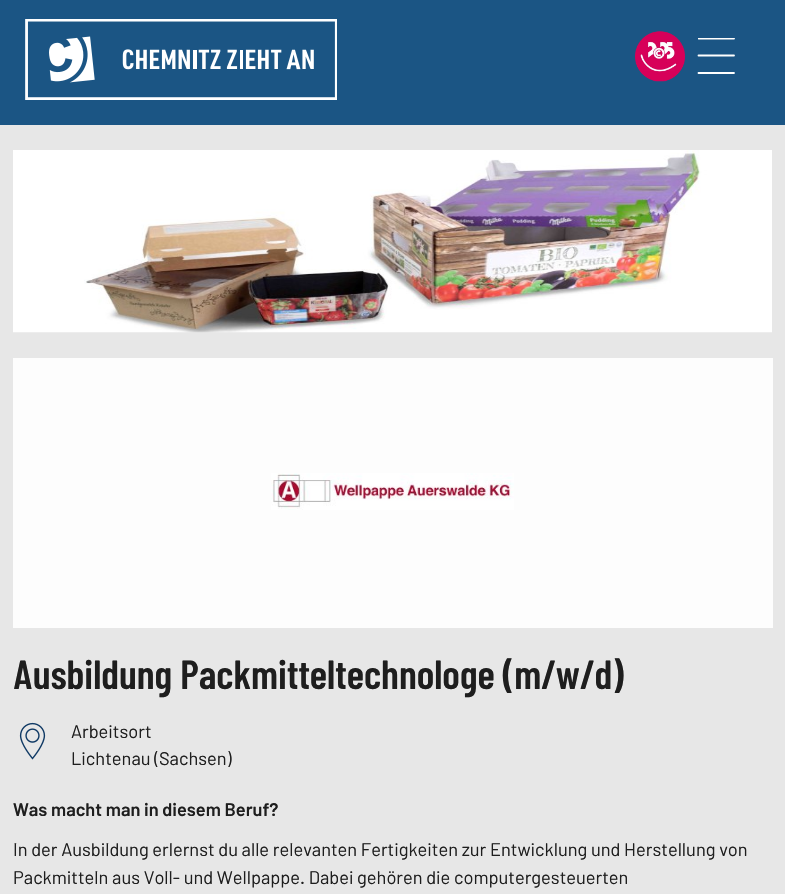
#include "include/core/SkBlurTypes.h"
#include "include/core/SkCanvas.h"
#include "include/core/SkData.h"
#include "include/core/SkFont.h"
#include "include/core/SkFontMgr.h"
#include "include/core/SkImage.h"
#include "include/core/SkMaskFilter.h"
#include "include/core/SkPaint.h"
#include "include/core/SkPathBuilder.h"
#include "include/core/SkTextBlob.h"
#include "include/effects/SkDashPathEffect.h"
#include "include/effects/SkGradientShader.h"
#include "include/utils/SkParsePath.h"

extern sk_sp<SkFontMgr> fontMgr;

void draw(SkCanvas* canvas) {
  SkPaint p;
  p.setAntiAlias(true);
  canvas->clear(SkColorSetRGB(231, 231, 231));
  p.setColor(SkColorSetRGB(27, 85, 132));
  canvas->drawRect(SkRect::MakeLTRB(0, 0, 785, 125), p);
  canvas->drawImageRect(SkImages::DeferredFromEncodedData(SkData::MakeFromFileName("images/1.png")), SkRect::MakeLTRB(25, 19, 337, 100), SkSamplingOptions());
  canvas->drawImageRect(SkImages::DeferredFromEncodedData(SkData::MakeFromFileName("images/2.png")), SkRect::MakeLTRB(635, 31, 685, 82), SkSamplingOptions());
  canvas->save();
  canvas->clipRect(SkRect::MakeLTRB(698, 38, 735, 75));
  p.setStyle(SkPaint::kStroke_Style);
  p.setStrokeWidth(1.8f);
  p.setStrokeCap(SkPaint::kRound_Cap);
  p.setStrokeJoin(SkPaint::kRound_Join);
  p.setColor(SK_ColorWHITE);
  canvas->drawPath(SkPathBuilder().moveTo(698.5f, 38.5f).lineTo(734, 38.5f).detach(), p);
  canvas->restore();
  canvas->drawPath(SkPathBuilder().moveTo(698.5f, 55.5f).lineTo(734, 55.5f).moveTo(698.5f, 73).lineTo(734, 73).detach(), p);
  canvas->drawImageRect(SkImages::DeferredFromEncodedData(SkData::MakeFromFileName("images/3.png")), SkRect::MakeLTRB(13, 150, 772, 333), SkSamplingOptions());
  p.setStyle(SkPaint::kFill_Style);
  p.setColor(SkColorSetRGB(253, 253, 253));
  canvas->drawRect(SkRect::MakeLTRB(13, 358, 773, 628), p);
  canvas->drawImageRect(SkImages::DeferredFromEncodedData(SkData::MakeFromFileName("images/4.png")), SkRect::MakeLTRB(271, 473, 514, 510), SkSamplingOptions());
  canvas->drawImageRect(SkImages::DeferredFromEncodedData(SkData::MakeFromFileName("images/5.png")), SkRect::MakeLTRB(19, 722, 46, 760), SkSamplingOptions());
  SkFont font1(fontMgr->matchFamilyStyle("Barlow Condensed", SkFontStyle(600, SkFontStyle::kNormal_Width, SkFontStyle::kUpright_Slant)), 40.6f);
  font1.setSubpixel(true);
  p.setColor(SkColorSetRGB(30, 30, 30));
  canvas->drawString("Ausbildung Packmitteltechnologe (m/w/d)", 13, 689, font1, p);
  SkFont font2(fontMgr->matchFamilyStyle("Barlow", SkFontStyle::Normal()), 18.25f);
  font2.setSubpixel(true);
  canvas->drawString("Arbeitsort", 71, 738, font2, p);
  canvas->drawString("Lichtenau (Sachsen)", 71, 765, font2, p);
  SkFont font3(fontMgr->matchFamilyStyle("Barlow", SkFontStyle(600, SkFontStyle::kNormal_Width, SkFontStyle::kUpright_Slant)), 18.25f);
  font3.setSubpixel(true);
  canvas->drawString("Was macht man in diesem Beruf?", 13, 816, font3, p);
  canvas->drawString("In der Ausbildung erlernst du alle relevanten Fertigkeiten zur Entwicklung und Herstellung von", 13, 856, font2, p);
  canvas->drawString("Packmitteln aus Voll- und Wellpappe. Dabei gehören die computergesteuerten", 13, 884, font2, p);
}
